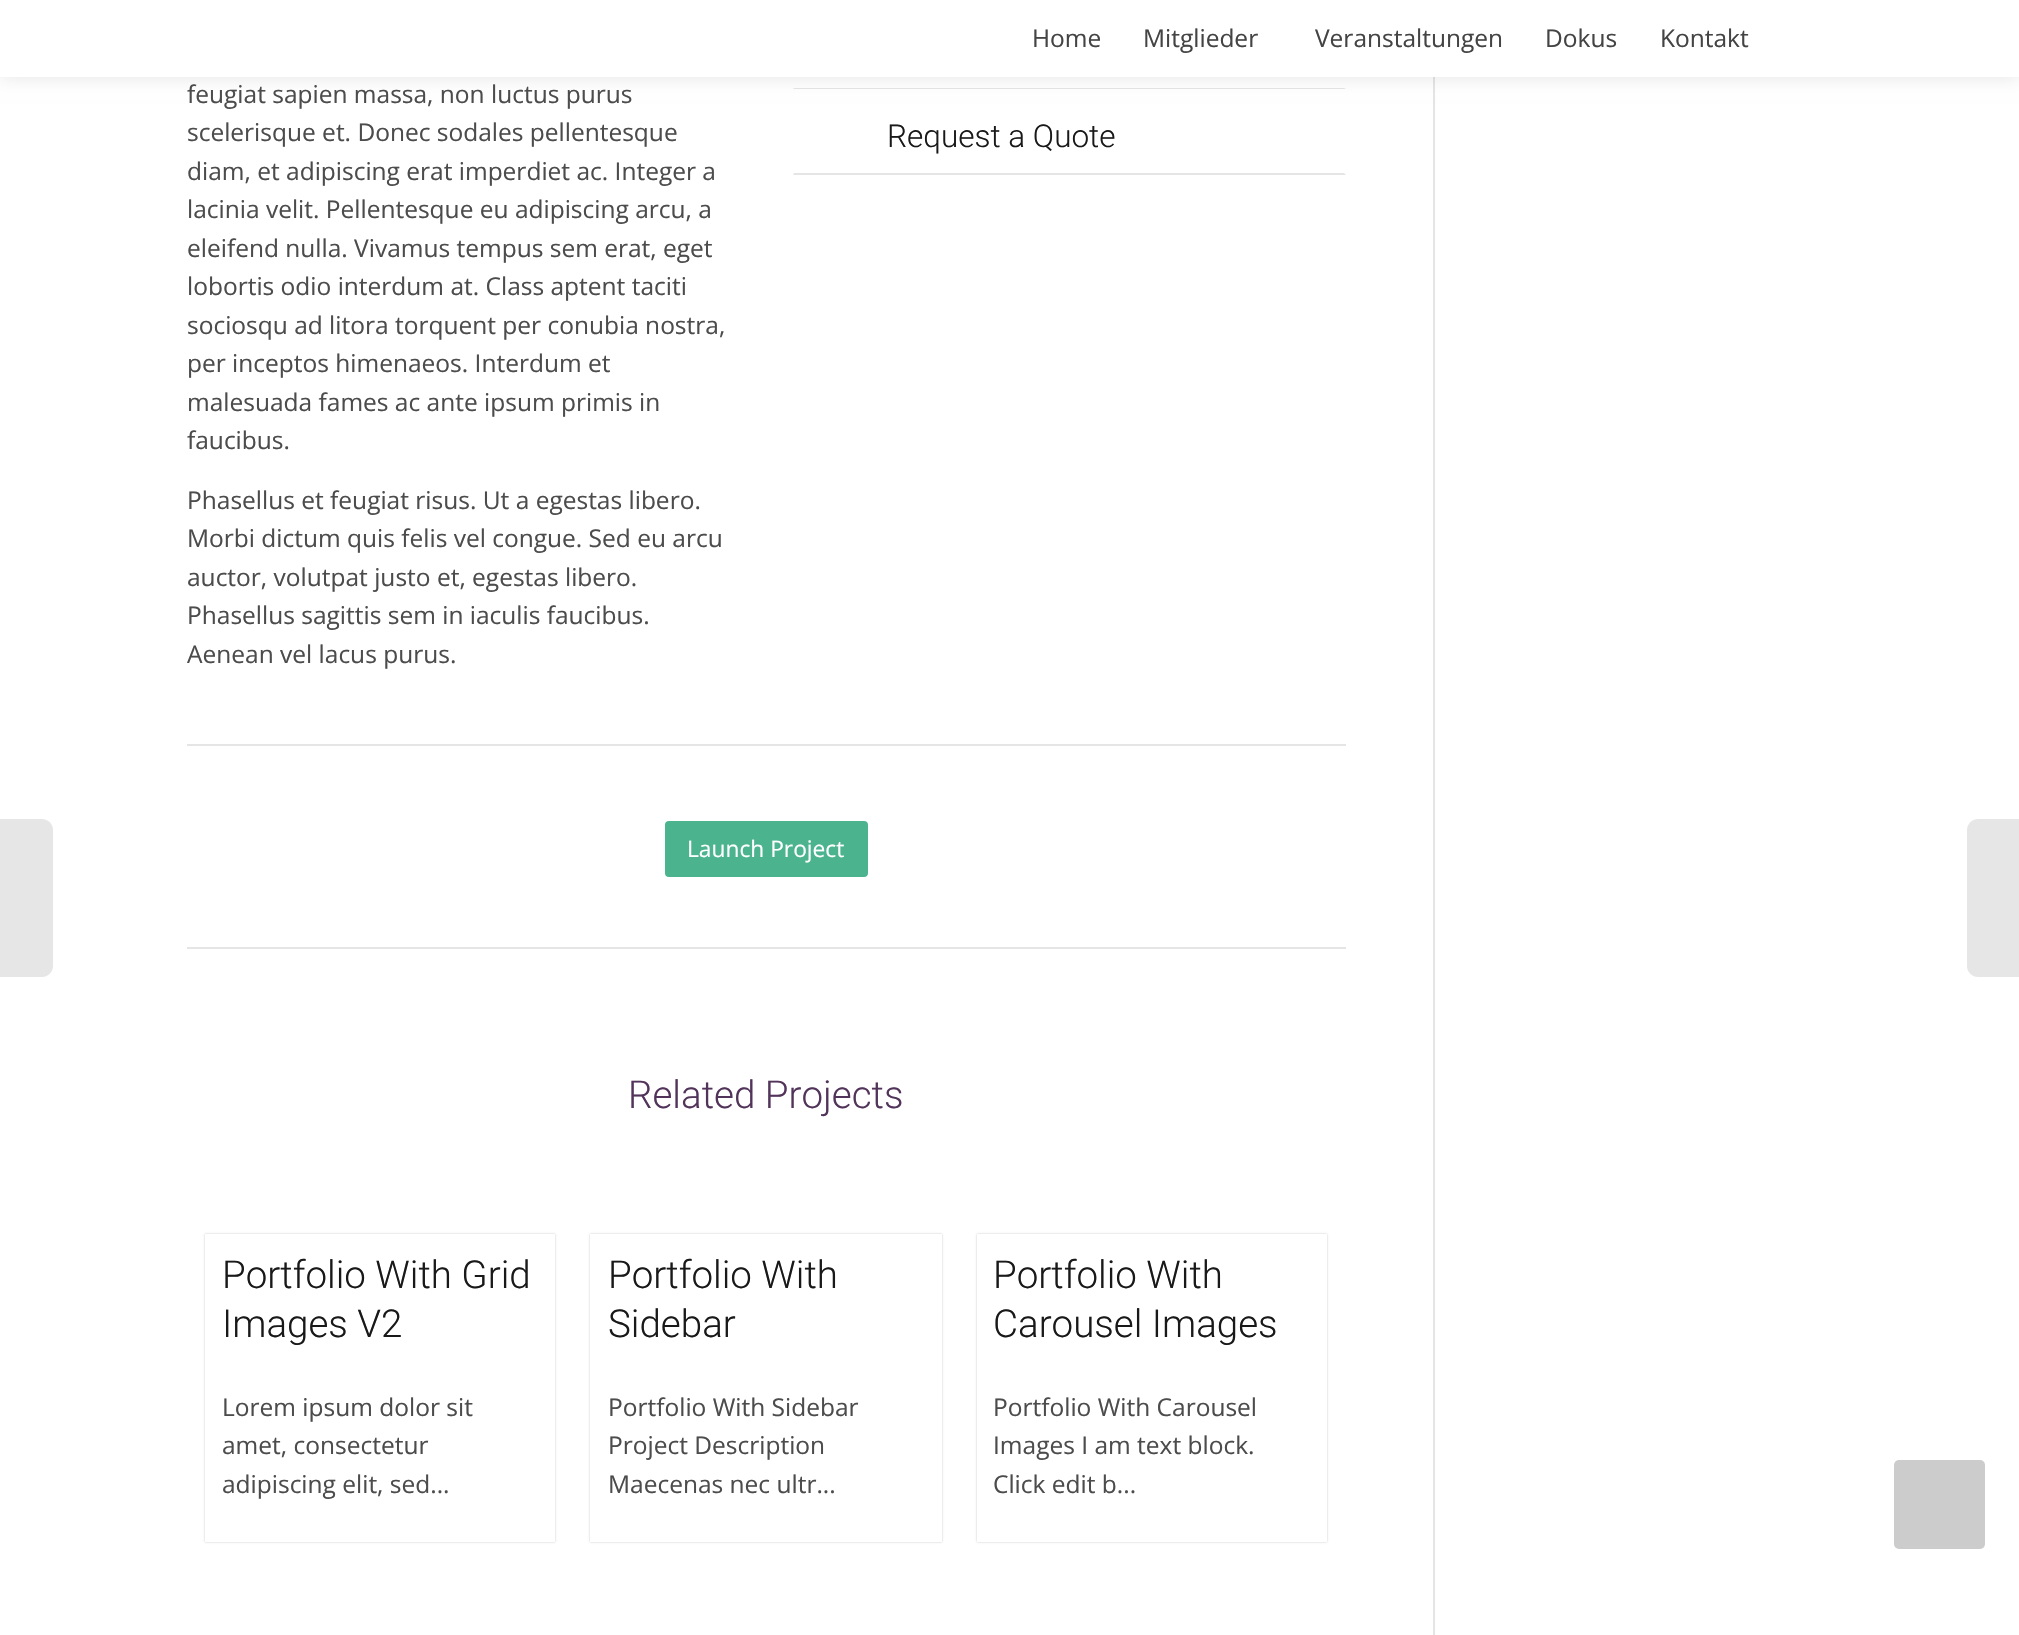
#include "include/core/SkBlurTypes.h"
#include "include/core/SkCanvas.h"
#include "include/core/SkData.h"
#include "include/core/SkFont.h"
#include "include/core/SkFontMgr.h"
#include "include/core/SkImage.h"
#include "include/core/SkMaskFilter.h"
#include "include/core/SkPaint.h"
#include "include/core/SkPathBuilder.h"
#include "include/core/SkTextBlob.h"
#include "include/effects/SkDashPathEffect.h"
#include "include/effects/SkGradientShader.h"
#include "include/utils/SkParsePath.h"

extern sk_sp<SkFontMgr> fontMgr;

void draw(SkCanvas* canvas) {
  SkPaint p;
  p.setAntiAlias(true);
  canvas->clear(SK_ColorWHITE);
  p.setColor(SkColorSetRGB(229, 229, 229));
  canvas->drawRect(SkRect::MakeLTRB(1433, 77, 1435, 1635), p);
  canvas->drawPath(SkPathBuilder().moveTo(1346, 89).lineTo(793, 89).lineTo(794, 88).lineTo(1344, 88).close().detach(), p);
  p.setColor(SkColorSetARGB(26, 0, 0, 0));
  p.setMaskFilter(SkMaskFilter::MakeBlur(kNormal_SkBlurStyle, 9));
  canvas->drawRect(SkRect::MakeLTRB(0, 0, 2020, 77), p);
  p.setMaskFilter(nullptr);
  p.setColor(SK_ColorWHITE);
  canvas->drawRect(SkRect::MakeLTRB(0, 0, 2019, 77), p);
  p.setColor(SkColorSetRGB(229, 229, 229));
  canvas->drawRect(SkRect::MakeLTRB(187, 744, 1346, 746), p);
  canvas->drawPath(SkPathBuilder().moveTo(1346, 175).lineTo(793, 175).lineTo(794, 173).lineTo(1344, 173).close().detach(), p);
  canvas->drawRect(SkRect::MakeLTRB(187, 947, 1346, 949), p);
  p.setColor(SkColorSetRGB(76, 179, 143));
  canvas->drawRoundRect(SkRect::MakeLTRB(666, 822, 867, 876), 3, 3, p);
  p.setStyle(SkPaint::kStroke_Style);
  p.setStrokeWidth(2);
  canvas->drawRoundRect(SkRect::MakeLTRB(666, 822, 867, 876), 3, 3, p);
  canvas->save();
  canvas->clipPath(SkPathBuilder(SkPathFillType::kEvenOdd).moveTo(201, 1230).lineTo(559, 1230).lineTo(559, 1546).lineTo(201, 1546).close().moveTo(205, 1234).lineTo(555, 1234).lineTo(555, 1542).lineTo(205, 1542).close().detach(), true);
  p.setStyle(SkPaint::kFill_Style);
  p.setColor(SkColorSetARGB(56, 0, 0, 0));
  p.setMaskFilter(SkMaskFilter::MakeBlur(kNormal_SkBlurStyle, 1));
  canvas->drawRect(SkRect::MakeLTRB(205, 1234, 555, 1542), p);
  p.setMaskFilter(nullptr);
  canvas->restore();
  canvas->save();
  canvas->clipPath(SkPathBuilder(SkPathFillType::kEvenOdd).moveTo(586, 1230).lineTo(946, 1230).lineTo(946, 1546).lineTo(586, 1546).close().moveTo(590, 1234).lineTo(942, 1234).lineTo(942, 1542).lineTo(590, 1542).close().detach(), true);
  p.setMaskFilter(SkMaskFilter::MakeBlur(kNormal_SkBlurStyle, 1));
  canvas->drawRect(SkRect::MakeLTRB(590, 1234, 942, 1542), p);
  p.setMaskFilter(nullptr);
  canvas->restore();
  canvas->save();
  canvas->clipPath(SkPathBuilder(SkPathFillType::kEvenOdd).moveTo(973, 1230).lineTo(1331, 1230).lineTo(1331, 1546).lineTo(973, 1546).close().moveTo(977, 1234).lineTo(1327, 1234).lineTo(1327, 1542).lineTo(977, 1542).close().detach(), true);
  p.setMaskFilter(SkMaskFilter::MakeBlur(kNormal_SkBlurStyle, 1));
  canvas->drawRect(SkRect::MakeLTRB(977, 1234, 1327, 1542), p);
  p.setMaskFilter(nullptr);
  canvas->restore();
  p.setColor(SkColorSetRGB(230, 230, 230));
  canvas->drawPath(SkPathBuilder().moveTo(-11, 819).lineTo(42, 819).cubicTo(48, 819, 53, 824, 53, 830).lineTo(53, 966).cubicTo(53, 972, 48, 977, 42, 977).lineTo(-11, 977).close().detach(), p);
  canvas->drawPath(SkPathBuilder().moveTo(1978, 819).lineTo(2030, 819).lineTo(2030, 977).lineTo(1978, 977).cubicTo(1972, 977, 1967, 972, 1967, 966).lineTo(1967, 830).cubicTo(1967, 824, 1972, 819, 1978, 819).close().detach(), p);
  p.setColor(SkColorSetRGB(204, 204, 204));
  canvas->drawRoundRect(SkRect::MakeLTRB(1894, 1460, 1985, 1549), 5, 5, p);
  SkFont font1(fontMgr->matchFamilyStyle("Open Sans", SkFontStyle::Normal()), 24.5f);
  font1.setSubpixel(true);
  p.setColor(SkColorSetRGB(68, 68, 68));
  canvas->drawString("Home", 1032, 47, font1, p);
  canvas->drawString("Mitglieder", 1143, 47, font1, p);
  canvas->drawString("Veranstaltungen", 1315, 47, font1, p);
  canvas->drawString("Dokus", 1545, 47, font1, p);
  canvas->drawString("Kontakt", 1660, 47, font1, p);
  p.setColor(SkColorSetRGB(76, 76, 76));
  canvas->drawString("feugiat sapien massa, non luctus purus", 187, 103, font1, p);
  canvas->drawString("scelerisque et. Donec sodales pellentesque", 187, 141, font1, p);
  canvas->drawString("diam, et adipiscing erat imperdiet ac. Integer a", 187, 180, font1, p);
  canvas->drawString("lacinia velit. Pellentesque eu adipiscing arcu, a", 187, 218, font1, p);
  canvas->drawString("eleifend nulla. Vivamus tempus sem erat, eget", 187, 257, font1, p);
  canvas->drawString("lobortis odio interdum at. Class aptent taciti", 187, 295, font1, p);
  canvas->drawString("sociosqu ad litora torquent per conubia nostra,", 187, 334, font1, p);
  canvas->drawString("per inceptos himenaeos. Interdum et", 187, 372, font1, p);
  canvas->drawString("malesuada fames ac ante ipsum primis in", 187, 411, font1, p);
  canvas->drawString("faucibus.", 187, 449, font1, p);
  canvas->drawString("Phasellus et feugiat risus. Ut a egestas libero.", 187, 509, font1, p);
  canvas->drawString("Morbi dictum quis felis vel congue. Sed eu arcu", 187, 547, font1, p);
  canvas->drawString("auctor, volutpat justo et, egestas libero.", 187, 586, font1, p);
  canvas->drawString("Phasellus sagittis sem in iaculis faucibus.", 187, 624, font1, p);
  canvas->drawString("Aenean vel lacus purus.", 187, 663, font1, p);
  SkFont font2(fontMgr->matchFamilyStyle("Roboto", SkFontStyle(300, SkFontStyle::kNormal_Width, SkFontStyle::kUpright_Slant)), 31.5f);
  font2.setSubpixel(true);
  p.setColor(SkColorSetRGB(25, 25, 25));
  canvas->drawString("Request a Quote", 887, 147, font2, p);
  SkFont font3(fontMgr->matchFamilyStyle("Open Sans", SkFontStyle::Normal()), 22.75f);
  font3.setSubpixel(true);
  p.setColor(SK_ColorWHITE);
  canvas->drawString("Launch Project", 687, 857, font3, p);
  SkFont font4(fontMgr->matchFamilyStyle("Roboto", SkFontStyle(300, SkFontStyle::kNormal_Width, SkFontStyle::kUpright_Slant)), 38.5f);
  font4.setSubpixel(true);
  p.setColor(SkColorSetRGB(82, 52, 91));
  canvas->drawString("Related Projects", 628, 1108, font4, p);
  p.setColor(SkColorSetRGB(25, 25, 25));
  canvas->drawString("Portfolio With Grid", 222, 1288, font4, p);
  canvas->drawString("Images V2", 222, 1337, font4, p);
  p.setColor(SkColorSetRGB(76, 76, 76));
  canvas->drawString("Lorem ipsum dolor sit", 222, 1416, font1, p);
  canvas->drawString("amet, consectetur", 222, 1454, font1, p);
  canvas->drawString("adipiscing elit, sed...", 222, 1493, font1, p);
  p.setColor(SkColorSetRGB(25, 25, 25));
  canvas->drawString("Portfolio With", 608, 1288, font4, p);
  canvas->drawString("Sidebar", 608, 1337, font4, p);
  p.setColor(SkColorSetRGB(76, 76, 76));
  canvas->drawString("Portfolio With Sidebar", 608, 1416, font1, p);
  canvas->drawString("Project Description", 608, 1454, font1, p);
  canvas->drawString("Maecenas nec ultr...", 608, 1493, font1, p);
  p.setColor(SkColorSetRGB(25, 25, 25));
  canvas->drawString("Portfolio With", 993, 1288, font4, p);
  canvas->drawString("Carousel Images", 993, 1337, font4, p);
  p.setColor(SkColorSetRGB(76, 76, 76));
  canvas->drawString("Portfolio With Carousel", 993, 1416, font1, p);
  canvas->drawString("Images I am text block.", 993, 1454, font1, p);
  canvas->drawString("Click edit b...", 993, 1493, font1, p);
}
